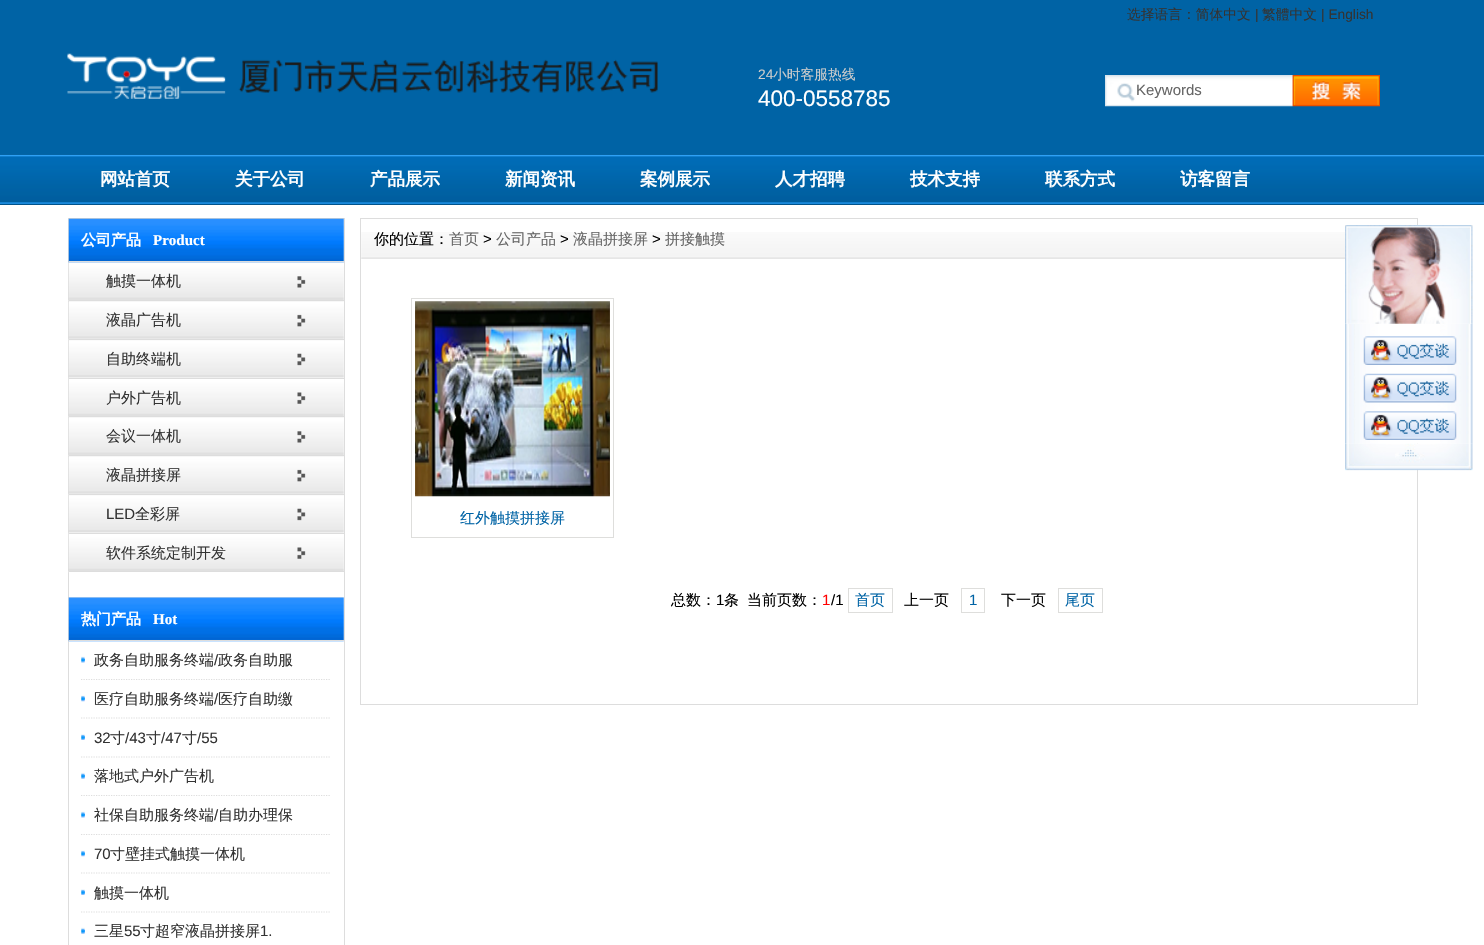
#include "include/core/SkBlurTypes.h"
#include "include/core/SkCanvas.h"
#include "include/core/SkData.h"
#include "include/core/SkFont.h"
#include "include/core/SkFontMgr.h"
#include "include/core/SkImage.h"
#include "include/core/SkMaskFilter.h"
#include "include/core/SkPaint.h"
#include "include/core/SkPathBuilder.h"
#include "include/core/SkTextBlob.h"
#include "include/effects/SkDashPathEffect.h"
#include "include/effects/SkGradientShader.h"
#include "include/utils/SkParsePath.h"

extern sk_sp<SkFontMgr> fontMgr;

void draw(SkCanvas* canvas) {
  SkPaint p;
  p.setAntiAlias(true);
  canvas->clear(SK_ColorWHITE);
  p.setColor(SkColorSetRGB(0, 99, 165));
  canvas->drawRect(SkRect::MakeLTRB(0, 0, 1484, 154), p);
  canvas->drawImageRect(SkImages::DeferredFromEncodedData(SkData::MakeFromFileName("images/1.png")), SkRect::MakeLTRB(67, 53, 658, 99), SkSamplingOptions());
  canvas->drawImageRect(SkImages::DeferredFromEncodedData(SkData::MakeFromFileName("images/2.png")), SkRect::MakeLTRB(1105, 75, 1380, 107), SkSamplingOptions());
  canvas->drawImageRect(SkImages::DeferredFromEncodedData(SkData::MakeFromFileName("images/3.png")), SkRect::MakeLTRB(0, 154, 1484, 205), SkSamplingOptions());
  p.setStyle(SkPaint::kStroke_Style);
  p.setStrokeWidth(1);
  p.setColor(SkColorSetRGB(221, 221, 221));
  canvas->drawRect(SkRect::MakeLTRB(68.5f, 218.5f, 344.5f, 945.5f), p);
  canvas->drawImageRect(SkImages::DeferredFromEncodedData(SkData::MakeFromFileName("images/4.png")), SkRect::MakeLTRB(68, 218, 344, 263), SkSamplingOptions());
  p.setStyle(SkPaint::kFill_Style);
  canvas->drawRect(SkRect::MakeLTRB(69, 261, 344, 262), p);
  canvas->drawImageRect(SkImages::DeferredFromEncodedData(SkData::MakeFromFileName("images/5.png")), SkRect::MakeLTRB(68, 262, 344, 301), SkSamplingOptions());
  canvas->drawImageRect(SkImages::DeferredFromEncodedData(SkData::MakeFromFileName("images/6.png")), SkRect::MakeLTRB(297, 276, 306, 288), SkSamplingOptions());
  canvas->drawRect(SkRect::MakeLTRB(69, 300, 344, 301), p);
  canvas->drawImageRect(SkImages::DeferredFromEncodedData(SkData::MakeFromFileName("images/7.png")), SkRect::MakeLTRB(68, 301, 344, 340), SkSamplingOptions());
  canvas->drawImageRect(SkImages::DeferredFromEncodedData(SkData::MakeFromFileName("images/8.png")), SkRect::MakeLTRB(297, 314, 306, 327), SkSamplingOptions());
  canvas->drawRect(SkRect::MakeLTRB(69, 339, 344, 340), p);
  canvas->drawImageRect(SkImages::DeferredFromEncodedData(SkData::MakeFromFileName("images/9.png")), SkRect::MakeLTRB(68, 340, 344, 379), SkSamplingOptions());
  canvas->drawImageRect(SkImages::DeferredFromEncodedData(SkData::MakeFromFileName("images/10.png")), SkRect::MakeLTRB(297, 353, 306, 366), SkSamplingOptions());
  canvas->drawRect(SkRect::MakeLTRB(69, 378, 344, 379), p);
  canvas->drawImageRect(SkImages::DeferredFromEncodedData(SkData::MakeFromFileName("images/11.png")), SkRect::MakeLTRB(68, 379, 344, 418), SkSamplingOptions());
  canvas->drawImageRect(SkImages::DeferredFromEncodedData(SkData::MakeFromFileName("images/12.png")), SkRect::MakeLTRB(297, 392, 306, 404), SkSamplingOptions());
  canvas->drawRect(SkRect::MakeLTRB(69, 416, 344, 417), p);
  canvas->drawImageRect(SkImages::DeferredFromEncodedData(SkData::MakeFromFileName("images/13.png")), SkRect::MakeLTRB(68, 417, 344, 456), SkSamplingOptions());
  canvas->drawImageRect(SkImages::DeferredFromEncodedData(SkData::MakeFromFileName("images/6.png")), SkRect::MakeLTRB(297, 431, 306, 443), SkSamplingOptions());
  canvas->drawRect(SkRect::MakeLTRB(69, 455, 344, 456), p);
  canvas->drawImageRect(SkImages::DeferredFromEncodedData(SkData::MakeFromFileName("images/7.png")), SkRect::MakeLTRB(68, 456, 344, 495), SkSamplingOptions());
  canvas->drawImageRect(SkImages::DeferredFromEncodedData(SkData::MakeFromFileName("images/8.png")), SkRect::MakeLTRB(297, 469, 306, 482), SkSamplingOptions());
  canvas->drawRect(SkRect::MakeLTRB(69, 494, 344, 495), p);
  canvas->drawImageRect(SkImages::DeferredFromEncodedData(SkData::MakeFromFileName("images/9.png")), SkRect::MakeLTRB(68, 495, 344, 534), SkSamplingOptions());
  canvas->drawImageRect(SkImages::DeferredFromEncodedData(SkData::MakeFromFileName("images/10.png")), SkRect::MakeLTRB(297, 508, 306, 521), SkSamplingOptions());
  canvas->drawRect(SkRect::MakeLTRB(69, 533, 344, 534), p);
  canvas->drawImageRect(SkImages::DeferredFromEncodedData(SkData::MakeFromFileName("images/11.png")), SkRect::MakeLTRB(68, 534, 344, 573), SkSamplingOptions());
  canvas->drawImageRect(SkImages::DeferredFromEncodedData(SkData::MakeFromFileName("images/12.png")), SkRect::MakeLTRB(297, 547, 306, 559), SkSamplingOptions());
  canvas->drawRect(SkRect::MakeLTRB(69, 571, 344, 572), p);
  canvas->drawImageRect(SkImages::DeferredFromEncodedData(SkData::MakeFromFileName("images/14.png")), SkRect::MakeLTRB(68, 597, 344, 642), SkSamplingOptions());
  canvas->drawRect(SkRect::MakeLTRB(69, 640, 344, 641), p);
  canvas->drawImageRect(SkImages::DeferredFromEncodedData(SkData::MakeFromFileName("images/15.png")), SkRect::MakeLTRB(81, 656, 85, 663), SkSamplingOptions());
  p.setStyle(SkPaint::kStroke_Style);
  p.setStrokeWidth(1.2f);
  p.setPathEffect(SkDashPathEffect::Make({{1.25f, 1.25f}}, 0));
  canvas->drawPath(SkPathBuilder().moveTo(81, 679.5f).lineTo(331, 679.5f).detach(), p);
  p.setPathEffect(nullptr);
  canvas->drawImageRect(SkImages::DeferredFromEncodedData(SkData::MakeFromFileName("images/16.png")), SkRect::MakeLTRB(81, 695, 85, 702), SkSamplingOptions());
  p.setPathEffect(SkDashPathEffect::Make({{1.25f, 1.25f}}, 0));
  canvas->drawPath(SkPathBuilder().moveTo(81, 718).lineTo(331, 718).detach(), p);
  p.setPathEffect(nullptr);
  canvas->drawImageRect(SkImages::DeferredFromEncodedData(SkData::MakeFromFileName("images/17.png")), SkRect::MakeLTRB(81, 734, 85, 740), SkSamplingOptions());
  p.setPathEffect(SkDashPathEffect::Make({{1.25f, 1.25f}}, 0));
  canvas->drawPath(SkPathBuilder().moveTo(81, 757).lineTo(331, 757).detach(), p);
  p.setPathEffect(nullptr);
  canvas->drawImageRect(SkImages::DeferredFromEncodedData(SkData::MakeFromFileName("images/18.png")), SkRect::MakeLTRB(81, 772, 85, 779), SkSamplingOptions());
  p.setPathEffect(SkDashPathEffect::Make({{1.25f, 1.25f}}, 0));
  canvas->drawPath(SkPathBuilder().moveTo(81, 795.5f).lineTo(331, 795.5f).detach(), p);
  p.setPathEffect(nullptr);
  canvas->drawImageRect(SkImages::DeferredFromEncodedData(SkData::MakeFromFileName("images/15.png")), SkRect::MakeLTRB(81, 811, 85, 818), SkSamplingOptions());
  p.setPathEffect(SkDashPathEffect::Make({{1.25f, 1.25f}}, 0));
  canvas->drawPath(SkPathBuilder().moveTo(81, 834.5f).lineTo(331, 834.5f).detach(), p);
  p.setPathEffect(nullptr);
  canvas->drawImageRect(SkImages::DeferredFromEncodedData(SkData::MakeFromFileName("images/16.png")), SkRect::MakeLTRB(81, 850, 85, 857), SkSamplingOptions());
  p.setPathEffect(SkDashPathEffect::Make({{1.25f, 1.25f}}, 0));
  canvas->drawPath(SkPathBuilder().moveTo(81, 873).lineTo(331, 873).detach(), p);
  p.setPathEffect(nullptr);
  canvas->drawImageRect(SkImages::DeferredFromEncodedData(SkData::MakeFromFileName("images/17.png")), SkRect::MakeLTRB(81, 889, 85, 895), SkSamplingOptions());
  p.setPathEffect(SkDashPathEffect::Make({{1.25f, 1.25f}}, 0));
  canvas->drawPath(SkPathBuilder().moveTo(81, 912).lineTo(331, 912).detach(), p);
  p.setPathEffect(nullptr);
  canvas->drawImageRect(SkImages::DeferredFromEncodedData(SkData::MakeFromFileName("images/18.png")), SkRect::MakeLTRB(81, 927, 85, 934), SkSamplingOptions());
  p.setStrokeWidth(1);
  canvas->drawRect(SkRect::MakeLTRB(360.5f, 218.5f, 1417.5f, 704.5f), p);
  canvas->drawImageRect(SkImages::DeferredFromEncodedData(SkData::MakeFromFileName("images/19.png")), SkRect::MakeLTRB(361, 232, 1345, 259), SkSamplingOptions());
  p.setColor(SkColorSetRGB(222, 222, 220));
  canvas->drawRect(SkRect::MakeLTRB(411.5f, 298.5f, 613.5f, 537.5f), p);
  canvas->drawImageRect(SkImages::DeferredFromEncodedData(SkData::MakeFromFileName("images/20.png")), SkRect::MakeLTRB(415, 301, 610, 497), SkSamplingOptions());
  canvas->drawRect(SkRect::MakeLTRB(848.5f, 588.5f, 892.5f, 612.5f), p);
  canvas->drawRect(SkRect::MakeLTRB(961.5f, 588.5f, 984.5f, 612.5f), p);
  canvas->drawRect(SkRect::MakeLTRB(1058.5f, 588.5f, 1102.5f, 612.5f), p);
  canvas->drawImageRect(SkImages::DeferredFromEncodedData(SkData::MakeFromFileName("images/22.png")), SkRect::MakeLTRB(1345, 323, 1473, 444), SkSamplingOptions());
  canvas->drawImageRect(SkImages::DeferredFromEncodedData(SkData::MakeFromFileName("images/21.png")), SkRect::MakeLTRB(1345, 225, 1473, 324), SkSamplingOptions());
  canvas->drawImageRect(SkImages::DeferredFromEncodedData(SkData::MakeFromFileName("images/23.png")), SkRect::MakeLTRB(1363, 336, 1457, 365), SkSamplingOptions());
  canvas->drawImageRect(SkImages::DeferredFromEncodedData(SkData::MakeFromFileName("images/24.png")), SkRect::MakeLTRB(1363, 373, 1457, 403), SkSamplingOptions());
  canvas->drawImageRect(SkImages::DeferredFromEncodedData(SkData::MakeFromFileName("images/25.png")), SkRect::MakeLTRB(1363, 411, 1457, 440), SkSamplingOptions());
  canvas->drawImageRect(SkImages::DeferredFromEncodedData(SkData::MakeFromFileName("images/26.png")), SkRect::MakeLTRB(1345, 443, 1473, 471), SkSamplingOptions());
  SkFont font1(fontMgr->matchFamilyStyle("WenQuanYi Zen Hei", SkFontStyle(500, SkFontStyle::kNormal_Width, SkFontStyle::kUpright_Slant)), 13.75f);
  font1.setSubpixel(true);
  p.setStyle(SkPaint::kFill_Style);
  p.setColor(SkColorSetRGB(51, 51, 51));
  canvas->drawString("选择语言：简体中文", 1127, 19, font1, p);
  SkFont font2(fontMgr->matchFamilyStyle("Liberation Sans", SkFontStyle::Normal()), 13.75f);
  font2.setSubpixel(true);
  canvas->drawString("|", 1255, 19, font2, p);
  canvas->drawString("繁體中文", 1262, 19, font1, p);
  canvas->drawString("| English", 1321, 19, font2, p);
  p.setColor(SkColorSetRGB(204, 204, 204));
  canvas->drawString("24", 758, 79, font2, p);
  canvas->drawString("小时客服热线", 773, 79, font1, p);
  SkFont font3(fontMgr->matchFamilyStyle("Liberation Sans", SkFontStyle::Normal()), 22.5f);
  font3.setSubpixel(true);
  p.setColor(SK_ColorWHITE);
  canvas->drawString("400-0558785", 758, 106, font3, p);
  SkFont font4(fontMgr->matchFamilyStyle("Liberation Sans", SkFontStyle::Normal()), 15);
  font4.setSubpixel(true);
  p.setColor(SkColorSetRGB(102, 102, 102));
  canvas->drawString("Keywords", 1136, 95, font4, p);
  SkFont font5(fontMgr->matchFamilyStyle("WenQuanYi Zen Hei", SkFontStyle::Bold()), 17.5f);
  font5.setSubpixel(true);
  p.setColor(SK_ColorWHITE);
  canvas->drawString("网站首页", 100, 185, font5, p);
  canvas->drawString("关于公司", 235, 185, font5, p);
  canvas->drawString("产品展示", 370, 185, font5, p);
  canvas->drawString("新闻资讯", 505, 185, font5, p);
  canvas->drawString("案例展示", 640, 185, font5, p);
  canvas->drawString("人才招聘", 775, 185, font5, p);
  canvas->drawString("技术支持", 910, 185, font5, p);
  canvas->drawString("联系方式", 1045, 185, font5, p);
  canvas->drawString("访客留言", 1180, 185, font5, p);
  SkFont font6(fontMgr->matchFamilyStyle("WenQuanYi Zen Hei", SkFontStyle::Bold()), 15);
  font6.setSubpixel(true);
  canvas->drawString("公司产品", 81, 245, font6, p);
  SkFont font7(fontMgr->matchFamilyStyle("Liberation Serif", SkFontStyle::Bold()), 15);
  font7.setSubpixel(true);
  canvas->drawString("Product", 153, 245, font7, p);
  SkFont font8(fontMgr->matchFamilyStyle("WenQuanYi Zen Hei", SkFontStyle(500, SkFontStyle::kNormal_Width, SkFontStyle::kUpright_Slant)), 15);
  font8.setSubpixel(true);
  p.setColor(SkColorSetRGB(51, 51, 51));
  canvas->drawString("触摸一体机", 106, 286, font8, p);
  canvas->drawString("液晶广告机", 106, 325, font8, p);
  canvas->drawString("自助终端机", 106, 364, font8, p);
  canvas->drawString("户外广告机", 106, 403, font8, p);
  canvas->drawString("会议一体机", 106, 441, font8, p);
  canvas->drawString("液晶拼接屏", 106, 480, font8, p);
  canvas->drawString("LED", 106, 519, font4, p);
  canvas->drawString("全彩屏", 135, 519, font8, p);
  canvas->drawString("软件系统定制开发", 106, 558, font8, p);
  p.setColor(SK_ColorWHITE);
  canvas->drawString("热门产品", 81, 624, font6, p);
  canvas->drawString("Hot", 153, 624, font7, p);
  p.setColor(SkColorSetRGB(51, 51, 51));
  canvas->drawString("政务自助服务终端", 94, 665, font8, p);
  canvas->drawString("/", 214, 665, font4, p);
  canvas->drawString("政务自助服", 218, 665, font8, p);
  canvas->drawString("医疗自助服务终端", 94, 704, font8, p);
  canvas->drawString("/", 214, 704, font4, p);
  canvas->drawString("医疗自助缴", 218, 704, font8, p);
  canvas->drawString("32", 94, 743, font4, p);
  canvas->drawString("寸", 110, 743, font8, p);
  canvas->drawString("/43", 125, 743, font4, p);
  canvas->drawString("寸", 146, 743, font8, p);
  canvas->drawString("/47", 161, 743, font4, p);
  canvas->drawString("寸", 182, 743, font8, p);
  canvas->drawString("/55", 197, 743, font4, p);
  canvas->drawString("落地式户外广告机", 94, 781, font8, p);
  canvas->drawString("社保自助服务终端", 94, 820, font8, p);
  canvas->drawString("/", 214, 820, font4, p);
  canvas->drawString("自助办理保", 218, 820, font8, p);
  canvas->drawString("70", 94, 859, font4, p);
  canvas->drawString("寸壁挂式触摸一体机", 110, 859, font8, p);
  canvas->drawString("触摸一体机", 94, 898, font8, p);
  canvas->drawString("三星", 94, 936, font8, p);
  canvas->drawString("55", 124, 936, font4, p);
  canvas->drawString("寸超窄液晶拼接屏", 140, 936, font8, p);
  canvas->drawString("1.", 260, 936, font4, p);
  p.setColor(SK_ColorBLACK);
  canvas->drawString("你的位置：", 374, 244, font8, p);
  p.setColor(SkColorSetRGB(102, 102, 102));
  canvas->drawString("首页", 449, 244, font8, p);
  p.setColor(SK_ColorBLACK);
  canvas->drawString(">", 483, 244, font4, p);
  p.setColor(SkColorSetRGB(102, 102, 102));
  canvas->drawString("公司产品", 496, 244, font8, p);
  p.setColor(SK_ColorBLACK);
  canvas->drawString(">", 560, 244, font4, p);
  p.setColor(SkColorSetRGB(102, 102, 102));
  canvas->drawString("液晶拼接屏", 573, 244, font8, p);
  p.setColor(SK_ColorBLACK);
  canvas->drawString(">", 652, 244, font4, p);
  p.setColor(SkColorSetRGB(102, 102, 102));
  canvas->drawString("拼接触摸", 665, 244, font8, p);
  p.setColor(SkColorSetRGB(0, 99, 165));
  canvas->drawString("红外触摸拼接屏", 460, 523, font8, p);
  p.setColor(SK_ColorBLACK);
  canvas->drawString("总数：", 671, 605, font8, p);
  canvas->drawString("1", 716, 605, font4, p);
  canvas->drawString("条", 724, 605, font8, p);
  canvas->drawString("当前页数：", 747, 605, font8, p);
  p.setColor(SkColorSetRGB(255, 0, 0));
  canvas->drawString("1", 822, 605, font4, p);
  p.setColor(SK_ColorBLACK);
  canvas->drawString("/1", 831, 605, font4, p);
  p.setColor(SkColorSetRGB(0, 99, 165));
  canvas->drawString("首页", 855, 605, font8, p);
  p.setColor(SK_ColorBLACK);
  canvas->drawString("上一页", 904, 605, font8, p);
  p.setColor(SkColorSetRGB(0, 99, 165));
  canvas->drawString("1", 969, 605, font4, p);
  p.setColor(SK_ColorBLACK);
  canvas->drawString("下一页", 1001, 605, font8, p);
  p.setColor(SkColorSetRGB(0, 99, 165));
  canvas->drawString("尾页", 1065, 605, font8, p);
}
